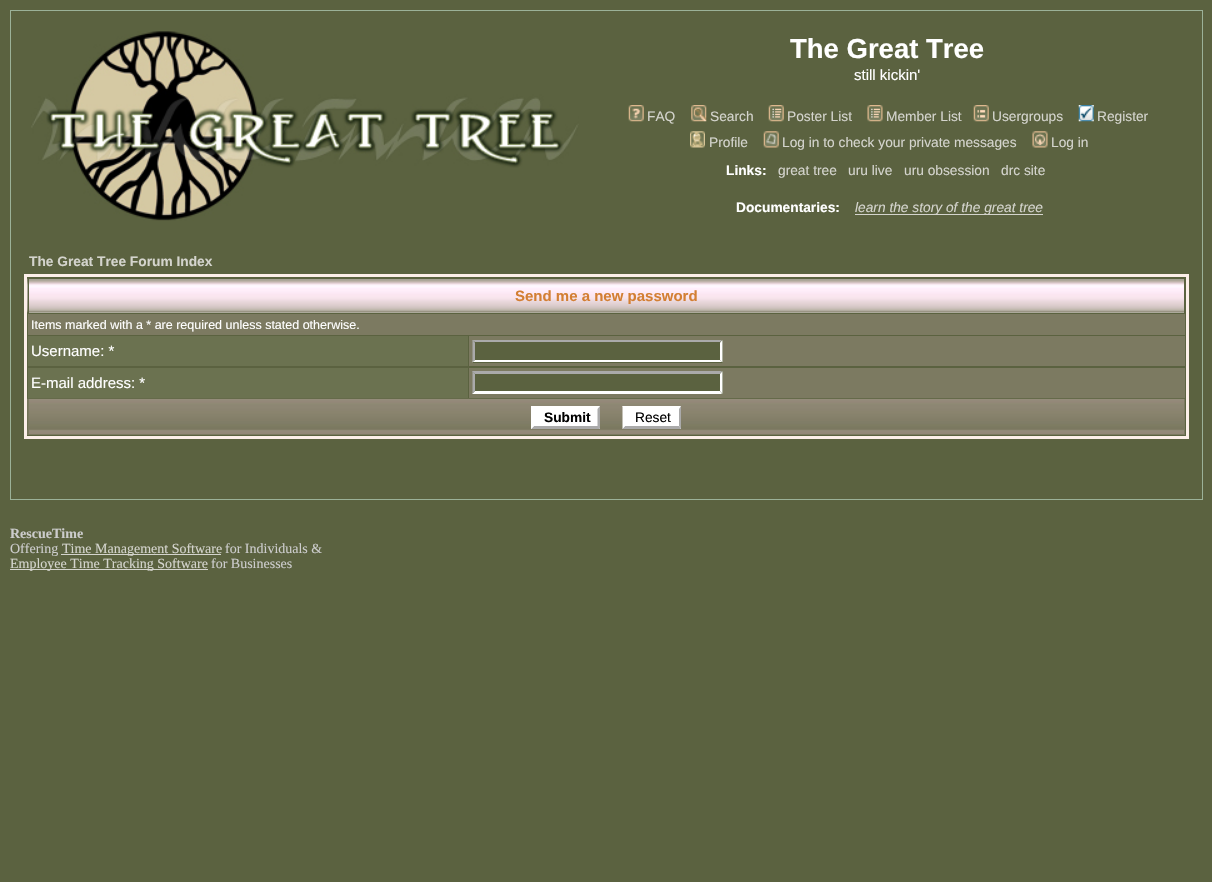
#include "include/core/SkBlurTypes.h"
#include "include/core/SkCanvas.h"
#include "include/core/SkData.h"
#include "include/core/SkFont.h"
#include "include/core/SkFontMgr.h"
#include "include/core/SkImage.h"
#include "include/core/SkMaskFilter.h"
#include "include/core/SkPaint.h"
#include "include/core/SkPathBuilder.h"
#include "include/core/SkTextBlob.h"
#include "include/effects/SkDashPathEffect.h"
#include "include/effects/SkGradientShader.h"
#include "include/utils/SkParsePath.h"

extern sk_sp<SkFontMgr> fontMgr;

void draw(SkCanvas* canvas) {
  SkPaint p;
  p.setAntiAlias(true);
  canvas->clear(SkColorSetRGB(91, 98, 64));
  p.setStyle(SkPaint::kStroke_Style);
  p.setStrokeWidth(1);
  p.setColor(SkColorSetRGB(155, 177, 152));
  canvas->drawRect(SkRect::MakeLTRB(10.5f, 10.5f, 1202.5f, 499.5f), p);
  canvas->drawImageRect(SkImages::DeferredFromEncodedData(SkData::MakeFromFileName("images/1.png")), SkRect::MakeLTRB(31, 31, 579, 221), SkSamplingOptions());
  canvas->drawImageRect(SkImages::DeferredFromEncodedData(SkData::MakeFromFileName("images/2.png")), SkRect::MakeLTRB(628, 105, 644, 122), SkSamplingOptions());
  canvas->drawImageRect(SkImages::DeferredFromEncodedData(SkData::MakeFromFileName("images/3.png")), SkRect::MakeLTRB(691, 105, 707, 122), SkSamplingOptions());
  canvas->drawImageRect(SkImages::DeferredFromEncodedData(SkData::MakeFromFileName("images/4.png")), SkRect::MakeLTRB(768, 105, 784, 122), SkSamplingOptions());
  canvas->drawImageRect(SkImages::DeferredFromEncodedData(SkData::MakeFromFileName("images/5.png")), SkRect::MakeLTRB(867, 105, 883, 122), SkSamplingOptions());
  canvas->drawImageRect(SkImages::DeferredFromEncodedData(SkData::MakeFromFileName("images/6.png")), SkRect::MakeLTRB(973, 105, 989, 122), SkSamplingOptions());
  canvas->drawImageRect(SkImages::DeferredFromEncodedData(SkData::MakeFromFileName("images/7.png")), SkRect::MakeLTRB(1078, 105, 1094, 122), SkSamplingOptions());
  canvas->drawImageRect(SkImages::DeferredFromEncodedData(SkData::MakeFromFileName("images/8.png")), SkRect::MakeLTRB(690, 131, 705, 148), SkSamplingOptions());
  canvas->drawImageRect(SkImages::DeferredFromEncodedData(SkData::MakeFromFileName("images/9.png")), SkRect::MakeLTRB(763, 131, 779, 148), SkSamplingOptions());
  canvas->drawImageRect(SkImages::DeferredFromEncodedData(SkData::MakeFromFileName("images/10.png")), SkRect::MakeLTRB(1032, 131, 1048, 148), SkSamplingOptions());
  p.setStyle(SkPaint::kFill_Style);
  p.setColor(SkColorSetRGB(212, 212, 205));
  canvas->drawRect(SkRect::MakeLTRB(855, 214, 1043, 215), p);
  p.setStyle(SkPaint::kStroke_Style);
  p.setStrokeWidth(3);
  p.setColor(SkColorSetRGB(252, 239, 233));
  canvas->drawRect(SkRect::MakeLTRB(25.5f, 275.5f, 1187.5f, 437.5f), p);
  p.setStyle(SkPaint::kFill_Style);
  p.setColor(SkColorSetRGB(212, 212, 205));
  canvas->drawRect(SkRect::MakeLTRB(29, 312, 1184, 313), p);
  canvas->drawImageRect(SkImages::DeferredFromEncodedData(SkData::MakeFromFileName("images/11.png")), SkRect::MakeLTRB(27, 278, 1184, 313), SkSamplingOptions());
  p.setColor(SkColorSetRGB(91, 98, 64));
  canvas->drawRect(SkRect::MakeLTRB(28, 278, 1185, 279), p);
  canvas->drawRect(SkRect::MakeLTRB(28, 278, 29, 313), p);
  p.setColor(SkColorSetRGB(124, 122, 97));
  canvas->drawRect(SkRect::MakeLTRB(28, 314, 1185, 335), p);
  p.setColor(SkColorSetRGB(107, 114, 80));
  canvas->drawRect(SkRect::MakeLTRB(28, 336, 468, 366), p);
  p.setColor(SkColorSetRGB(124, 122, 97));
  canvas->drawRect(SkRect::MakeLTRB(469, 336, 1185, 366), p);
  p.setColor(SkColorSetRGB(91, 98, 64));
  canvas->drawRect(SkRect::MakeLTRB(473, 340, 723, 363), p);
  p.setColor(SkColorSetRGB(170, 170, 170));
  canvas->drawPath(SkPathBuilder().moveTo(472, 340).lineTo(722, 340).lineTo(720, 342).lineTo(475, 342).close().detach(), p);
  p.setColor(SK_ColorWHITE);
  canvas->drawPath(SkPathBuilder().moveTo(722.5f, 340).lineTo(722.5f, 362.5f).lineTo(720, 360).lineTo(720, 342.5f).close().detach(), p);
  canvas->drawPath(SkPathBuilder().moveTo(722, 362).lineTo(472, 362).lineTo(475, 360).lineTo(720, 360).close().detach(), p);
  p.setColor(SkColorSetRGB(170, 170, 170));
  canvas->drawPath(SkPathBuilder().moveTo(472.5f, 362.5f).lineTo(472.5f, 340).lineTo(475, 342.5f).lineTo(475, 360).close().detach(), p);
  p.setColor(SkColorSetRGB(107, 114, 80));
  canvas->drawRect(SkRect::MakeLTRB(28, 368, 468, 398), p);
  p.setColor(SkColorSetRGB(124, 122, 97));
  canvas->drawRect(SkRect::MakeLTRB(469, 368, 1185, 398), p);
  p.setColor(SkColorSetRGB(91, 98, 64));
  canvas->drawRect(SkRect::MakeLTRB(473, 371, 723, 394), p);
  p.setColor(SkColorSetRGB(170, 170, 170));
  canvas->drawPath(SkPathBuilder().moveTo(472, 371).lineTo(722, 371).lineTo(720, 374).lineTo(475, 374).close().detach(), p);
  p.setColor(SK_ColorWHITE);
  canvas->drawPath(SkPathBuilder().moveTo(722.5f, 371).lineTo(722.5f, 394).lineTo(720, 391).lineTo(720, 374).close().detach(), p);
  canvas->drawPath(SkPathBuilder().moveTo(722, 394).lineTo(472, 394).lineTo(475, 391).lineTo(720, 391).close().detach(), p);
  p.setColor(SkColorSetRGB(170, 170, 170));
  canvas->drawPath(SkPathBuilder().moveTo(472.5f, 394).lineTo(472.5f, 371).lineTo(475, 374).lineTo(475, 391).close().detach(), p);
  canvas->drawImageRect(SkImages::DeferredFromEncodedData(SkData::MakeFromFileName("images/12.png")), SkRect::MakeLTRB(27, 398, 1185, 435), SkSamplingOptions());
  p.setColor(SkColorSetRGB(124, 122, 97));
  canvas->drawRect(SkRect::MakeLTRB(1184, 399, 1185, 435), p);
  canvas->drawRect(SkRect::MakeLTRB(28, 434, 1185, 435), p);
  canvas->drawRect(SkRect::MakeLTRB(28, 399, 29, 435), p);
  p.setColor(SK_ColorWHITE);
  canvas->drawRect(SkRect::MakeLTRB(531, 406, 600, 429), p);
  p.setColor(SkColorSetRGB(170, 170, 170));
  canvas->drawPath(SkPathBuilder().moveTo(600, 406).lineTo(600, 429).lineTo(597.5f, 426).lineTo(597.5f, 409).close().detach(), p);
  canvas->drawPath(SkPathBuilder().moveTo(600, 429).lineTo(531, 429).lineTo(534, 426).lineTo(598, 426).close().detach(), p);
  p.setColor(SK_ColorWHITE);
  canvas->drawPath(SkPathBuilder().moveTo(531, 429).lineTo(531, 406).lineTo(534, 409).lineTo(534, 426).close().detach(), p);
  canvas->drawRect(SkRect::MakeLTRB(623, 406, 681, 429), p);
  canvas->drawPath(SkPathBuilder().moveTo(622, 406).lineTo(681, 406).lineTo(679, 409).lineTo(625, 409).close().detach(), p);
  p.setColor(SkColorSetRGB(170, 170, 170));
  canvas->drawPath(SkPathBuilder().moveTo(681, 406).lineTo(681, 429).lineTo(679, 426).lineTo(679, 409).close().detach(), p);
  canvas->drawPath(SkPathBuilder().moveTo(681, 429).lineTo(622, 429).lineTo(625, 426).lineTo(679, 426).close().detach(), p);
  p.setColor(SK_ColorWHITE);
  canvas->drawPath(SkPathBuilder().moveTo(622.5f, 429).lineTo(622.5f, 406).lineTo(625, 409).lineTo(625, 426).close().detach(), p);
  p.setColor(SkColorSetRGB(212, 212, 205));
  canvas->drawRect(SkRect::MakeLTRB(61, 554, 221, 555), p);
  canvas->drawRect(SkRect::MakeLTRB(10, 569, 208, 570), p);
  SkFont font1(fontMgr->matchFamilyStyle("Liberation Sans", SkFontStyle::Bold()), 27.5f);
  font1.setSubpixel(true);
  p.setColor(SK_ColorWHITE);
  canvas->drawString("The Great Tree", 790, 58, font1, p);
  SkFont font2(fontMgr->matchFamilyStyle("Liberation Sans", SkFontStyle::Normal()), 15);
  font2.setSubpixel(true);
  canvas->drawString("still kickin'", 854, 80, font2, p);
  SkFont font3(fontMgr->matchFamilyStyle("Liberation Sans", SkFontStyle::Normal()), 13.75f);
  font3.setSubpixel(true);
  p.setColor(SkColorSetRGB(212, 212, 205));
  canvas->drawString("FAQ", 647, 121, font3, p);
  canvas->drawString("Search", 710, 121, font3, p);
  canvas->drawString("Poster List", 787, 121, font3, p);
  canvas->drawString("Member List", 886, 121, font3, p);
  canvas->drawString("Usergroups", 992, 121, font3, p);
  canvas->drawString("Register", 1097, 121, font3, p);
  canvas->drawString("Profile", 709, 147, font3, p);
  canvas->drawString("Log in to check your private messages", 782, 147, font3, p);
  canvas->drawString("Log in", 1051, 147, font3, p);
  SkFont font4(fontMgr->matchFamilyStyle("Liberation Sans", SkFontStyle::Bold()), 13.75f);
  font4.setSubpixel(true);
  p.setColor(SK_ColorWHITE);
  canvas->drawString("Links:", 726, 175, font4, p);
  p.setColor(SkColorSetRGB(212, 212, 205));
  canvas->drawString("great tree", 778, 175, font3, p);
  canvas->drawString("uru live", 848, 175, font3, p);
  canvas->drawString("uru obsession", 904, 175, font3, p);
  canvas->drawString("drc site", 1001, 175, font3, p);
  p.setColor(SK_ColorWHITE);
  canvas->drawString("Documentaries:", 736, 212, font4, p);
  SkFont font5(fontMgr->matchFamilyStyle("Liberation Sans", SkFontStyle::Italic()), 13.75f);
  font5.setSubpixel(true);
  p.setColor(SkColorSetRGB(212, 212, 205));
  canvas->drawString("learn the story of the great tree", 855, 212, font5, p);
  canvas->drawString("The Great Tree Forum Index", 29, 266, font4, p);
  SkFont font6(fontMgr->matchFamilyStyle("Liberation Sans", SkFontStyle::Bold()), 15);
  font6.setSubpixel(true);
  p.setColor(SkColorSetRGB(211, 127, 51));
  canvas->drawString("Send me a new password", 515, 301, font6, p);
  SkFont font7(fontMgr->matchFamilyStyle("Liberation Sans", SkFontStyle::Normal()), 12.5f);
  font7.setSubpixel(true);
  p.setColor(SK_ColorWHITE);
  canvas->drawString("Items marked with a * are required unless stated otherwise.", 31, 329, font7, p);
  canvas->drawString("Username: *", 31, 356, font2, p);
  canvas->drawString("E-mail address: *", 31, 388, font2, p);
  p.setColor(SK_ColorBLACK);
  canvas->drawString("Submit", 544, 422, font4, p);
  canvas->drawString("Reset", 635, 422, font3, p);
  SkFont font8(fontMgr->matchFamilyStyle("Liberation Serif", SkFontStyle::Bold()), 14);
  font8.setSubpixel(true);
  p.setColor(SkColorSetRGB(204, 204, 204));
  canvas->drawString("RescueTime", 10, 538, font8, p);
  SkFont font9(fontMgr->matchFamilyStyle("Liberation Serif", SkFontStyle::Normal()), 14);
  font9.setSubpixel(true);
  canvas->drawString("Offering", 10, 553, font9, p);
  p.setColor(SkColorSetRGB(212, 212, 205));
  canvas->drawString("Time Management Software", 62, 553, font9, p);
  p.setColor(SkColorSetRGB(204, 204, 204));
  canvas->drawString("for Individuals &", 225, 553, font9, p);
  p.setColor(SkColorSetRGB(212, 212, 205));
  canvas->drawString("Employee Time Tracking Software", 10, 568, font9, p);
  p.setColor(SkColorSetRGB(204, 204, 204));
  canvas->drawString("for Businesses", 211, 568, font9, p);
}
